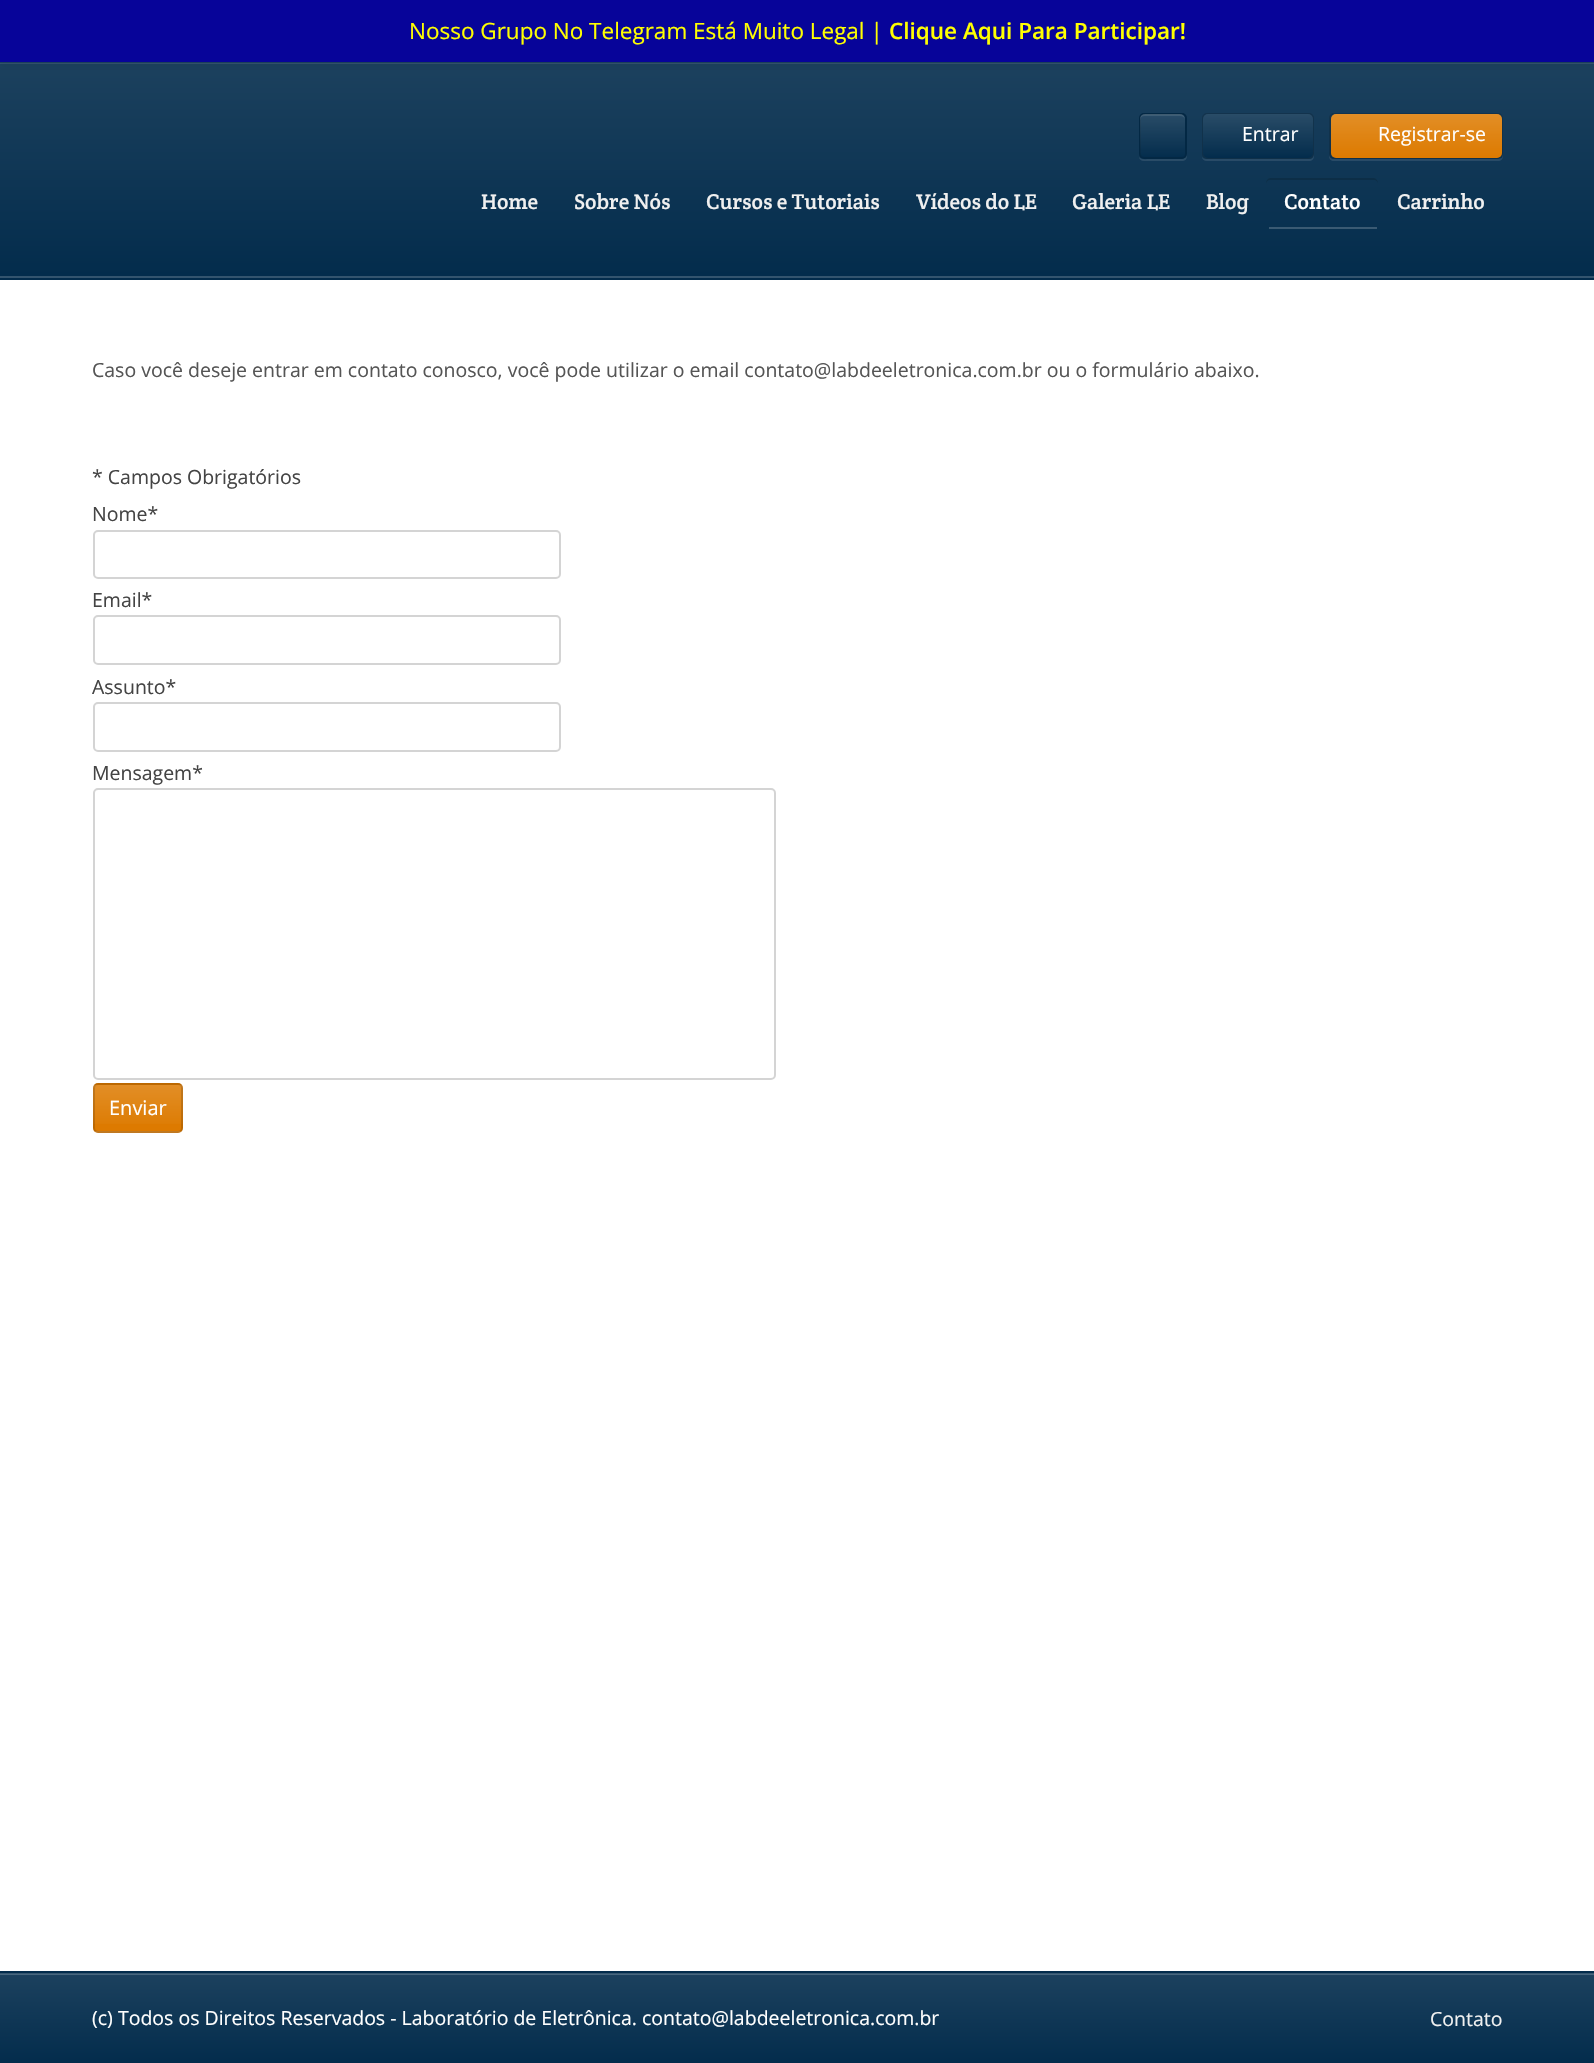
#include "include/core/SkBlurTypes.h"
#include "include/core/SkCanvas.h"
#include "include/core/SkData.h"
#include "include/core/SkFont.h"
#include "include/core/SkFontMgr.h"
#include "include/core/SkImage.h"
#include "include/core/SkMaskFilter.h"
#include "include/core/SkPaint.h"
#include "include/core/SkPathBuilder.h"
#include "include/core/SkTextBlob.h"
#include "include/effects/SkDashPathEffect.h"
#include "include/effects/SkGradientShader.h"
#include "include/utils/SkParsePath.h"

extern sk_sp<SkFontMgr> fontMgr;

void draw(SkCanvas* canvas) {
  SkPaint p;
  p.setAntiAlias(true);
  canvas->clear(SK_ColorWHITE);
  p.setColor(SkColorSetRGB(28, 65, 94));
  canvas->drawRect(SkRect::MakeLTRB(0, 62, 1594, 63), p);
  {
    const SkColor colors[] = {SkColorSetRGB(28, 65, 94), SkColorSetRGB(3, 44, 76)};
    const float stops[] = {0, 1};
    const SkPoint ends[] = {{797, 63}, {797, 276}};
    p.setShader(SkGradientShader::MakeLinear(ends, colors, stops, 2, SkTileMode::kClamp));
    p.setAlpha(255);
  }
  canvas->drawRect(SkRect::MakeLTRB(0, 64, 1594, 276), p);
  {
    const SkColor colors[] = {SkColorSetRGB(51, 84, 110), SkColorSetRGB(28, 65, 94)};
    const float stops[] = {0, 1};
    const SkPoint ends[] = {{797, 63}, {797, 276}};
    p.setShader(SkGradientShader::MakeLinear(ends, colors, stops, 2, SkTileMode::kClamp));
    p.setAlpha(255);
  }
  canvas->drawRect(SkRect::MakeLTRB(0, 63, 1594, 64), p);
  p.setShader(nullptr);
  p.setColor(SkColorSetARGB(13, 0, 0, 0));
  p.setMaskFilter(SkMaskFilter::MakeBlur(kNormal_SkBlurStyle, 3));
  canvas->drawRect(SkRect::MakeLTRB(0, 5, 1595, 66), p);
  p.setMaskFilter(nullptr);
  p.setColor(SkColorSetRGB(7, 4, 153));
  canvas->drawRect(SkRect::MakeLTRB(0, 0, 1594, 62), p);
  p.setColor(SkColorSetRGB(51, 84, 110));
  canvas->drawRect(SkRect::MakeLTRB(0, 276, 1594, 278), p);
  p.setColor(SkColorSetARGB(26, 255, 255, 255));
  canvas->drawPath(SkPathBuilder().moveTo(1139, 157).cubicTo(1139, 159, 1141, 161, 1144, 161).lineTo(1182, 161).cubicTo(1185, 161, 1187, 159, 1187, 156).lineTo(1187, 119).lineTo(1186, 117).lineTo(1186, 148).cubicTo(1186, 159, 1186, 159, 1176, 159).lineTo(1150, 159).cubicTo(1146, 159, 1141, 160, 1139, 157).close().detach(), p);
  p.setColor(SkColorSetRGB(3, 44, 76));
  canvas->drawRoundRect(SkRect::MakeLTRB(1139, 113, 1187, 159), 5, 5, p);
  p.setStyle(SkPaint::kStroke_Style);
  p.setStrokeWidth(2);
  p.setColor(SkColorSetARGB(26, 0, 0, 0));
  canvas->drawRoundRect(SkRect::MakeLTRB(1140, 114, 1186, 158), 4, 4, p);
  p.setStyle(SkPaint::kFill_Style);
  {
    const SkColor colors[] = {SkColorSetARGB(38, 255, 255, 255), SkColorSetARGB(0, 255, 255, 255)};
    const float stops[] = {0, 1};
    const SkPoint ends[] = {{1163, 114}, {1163, 158}};
    p.setShader(SkGradientShader::MakeLinear(ends, colors, stops, 2, SkTileMode::kClamp));
    p.setAlpha(255);
  }
  canvas->drawRoundRect(SkRect::MakeLTRB(1140, 114, 1185, 158), 5, 5, p);
  p.setShader(nullptr);
  p.setColor(SkColorSetARGB(26, 255, 255, 255));
  canvas->drawPath(SkPathBuilder().moveTo(1144, 116).lineTo(1180, 116).cubicTo(1183, 116, 1185, 118, 1185, 120).cubicTo(1185, 113, 1180, 114, 1174, 114).lineTo(1151, 114).cubicTo(1145, 114, 1140, 113, 1140, 120).cubicTo(1140, 118, 1142, 116, 1144, 116).close().detach(), p);
  p.setColor(SkColorSetRGB(41, 75, 103));
  canvas->drawPath(SkPathBuilder().moveTo(1202, 157).cubicTo(1202, 159, 1204, 161, 1207, 161).lineTo(1309, 161).cubicTo(1312, 161, 1314, 159, 1314, 156).lineTo(1314, 154).cubicTo(1314, 157, 1312, 159, 1310, 159).lineTo(1206, 159).cubicTo(1204, 159, 1203, 158, 1202, 157).close().detach(), p);
  p.setStyle(SkPaint::kStroke_Style);
  p.setColor(SkColorSetARGB(38, 0, 0, 0));
  canvas->drawRoundRect(SkRect::MakeLTRB(1203, 114, 1313, 158), 4, 4, p);
  p.setStyle(SkPaint::kFill_Style);
  p.setColor(SkColorSetRGB(3, 44, 76));
  canvas->drawRoundRect(SkRect::MakeLTRB(1203, 114, 1313, 158), 5, 5, p);
  {
    const SkColor colors[] = {SkColorSetARGB(38, 255, 255, 255), SkColorSetARGB(0, 255, 255, 255)};
    const float stops[] = {0, 1};
    const SkPoint ends[] = {{1258, 114}, {1258, 158}};
    p.setShader(SkGradientShader::MakeLinear(ends, colors, stops, 2, SkTileMode::kClamp));
    p.setAlpha(255);
  }
  canvas->drawRoundRect(SkRect::MakeLTRB(1203, 114, 1313, 158), 5, 5, p);
  p.setShader(nullptr);
  p.setColor(SkColorSetRGB(41, 75, 103));
  canvas->drawPath(SkPathBuilder().moveTo(1329, 154).lineTo(1329, 156).cubicTo(1329, 159, 1331, 161, 1334, 161).lineTo(1498, 161).cubicTo(1501, 161, 1503, 159, 1503, 156).lineTo(1503, 154).lineTo(1502, 158).lineTo(1498, 159).lineTo(1334, 159).cubicTo(1331, 159, 1329, 157, 1329, 154).close().detach(), p);
  p.setStyle(SkPaint::kStroke_Style);
  p.setColor(SkColorSetARGB(38, 0, 0, 0));
  canvas->drawRoundRect(SkRect::MakeLTRB(1330, 114, 1502, 158), 4, 4, p);
  p.setStyle(SkPaint::kFill_Style);
  p.setColor(SkColorSetRGB(221, 122, 0));
  canvas->drawRoundRect(SkRect::MakeLTRB(1331, 114, 1502, 158), 5, 5, p);
  {
    const SkColor colors[] = {SkColorSetARGB(38, 255, 255, 255), SkColorSetARGB(0, 255, 255, 255)};
    const float stops[] = {0, 1};
    const SkPoint ends[] = {{1416, 114}, {1416, 158}};
    p.setShader(SkGradientShader::MakeLinear(ends, colors, stops, 2, SkTileMode::kClamp));
    p.setAlpha(255);
  }
  canvas->drawRoundRect(SkRect::MakeLTRB(1331, 114, 1502, 158), 5, 5, p);
  p.setShader(nullptr);
  p.setColor(SkColorSetRGB(12, 46, 71));
  canvas->drawPath(SkPathBuilder().moveTo(1270, 180).lineTo(1374, 180).cubicTo(1376, 180, 1378, 182, 1378, 184).lineTo(1378, 225).lineTo(1378, 224).lineTo(1378, 183).cubicTo(1378, 181, 1376, 178, 1374, 178).lineTo(1270, 178).cubicTo(1268, 178, 1266, 181, 1266, 183).lineTo(1266, 184).cubicTo(1266, 182, 1268, 180, 1270, 180).close().detach(), p);
  p.setColor(SkColorSetRGB(58, 90, 115));
  canvas->drawRect(SkRect::MakeLTRB(1269, 227, 1377, 229), p);
  p.setColor(SkColorSetRGB(3, 44, 76));
  canvas->drawRect(SkRect::MakeLTRB(0, 278, 1594, 280), p);
  p.setStyle(SkPaint::kStroke_Style);
  p.setColor(SkColorSetRGB(212, 212, 212));
  canvas->drawRoundRect(SkRect::MakeLTRB(94, 531, 560, 578), 4, 4, p);
  canvas->drawRoundRect(SkRect::MakeLTRB(94, 616, 560, 664), 4, 4, p);
  canvas->drawRoundRect(SkRect::MakeLTRB(94, 703, 560, 751), 4, 4, p);
  canvas->drawRoundRect(SkRect::MakeLTRB(94, 789, 775, 1079), 4, 4, p);
  p.setStyle(SkPaint::kFill_Style);
  p.setColor(SkColorSetRGB(221, 122, 0));
  canvas->drawRoundRect(SkRect::MakeLTRB(93, 1083, 183, 1133), 5, 5, p);
  {
    const SkColor colors[] = {SkColorSetARGB(38, 255, 255, 255), SkColorSetARGB(0, 255, 255, 255)};
    const float stops[] = {0, 1};
    const SkPoint ends[] = {{138, 1085}, {138, 1131}};
    p.setShader(SkGradientShader::MakeLinear(ends, colors, stops, 2, SkTileMode::kClamp));
    p.setAlpha(255);
  }
  canvas->drawRect(SkRect::MakeLTRB(93, 1085, 183, 1124), p);
  canvas->save();
  canvas->clipPath(SkPathBuilder().moveTo(98, 1083).lineTo(178, 1083).cubicTo(181, 1083, 183, 1085, 183, 1088).lineTo(183, 1128).cubicTo(183, 1131, 181, 1133, 178, 1133).lineTo(98, 1133).cubicTo(95, 1133, 93, 1131, 93, 1128).lineTo(93, 1088).cubicTo(93, 1085, 95, 1083, 98, 1083).close().detach(), true);
  {
    const SkColor colors[] = {SkColorSetARGB(38, 255, 255, 255), SkColorSetARGB(0, 255, 255, 255)};
    const float stops[] = {0, 1};
    const SkPoint ends[] = {{138, 1131}, {138, 1178}};
    p.setShader(SkGradientShader::MakeLinear(ends, colors, stops, 2, SkTileMode::kClamp));
    p.setAlpha(255);
  }
  canvas->drawRect(SkRect::MakeLTRB(93, 1131, 183, 1133), p);
  canvas->restore();
  p.setStyle(SkPaint::kStroke_Style);
  p.setShader(nullptr);
  p.setColor(SkColorSetARGB(38, 0, 0, 0));
  canvas->drawRoundRect(SkRect::MakeLTRB(94, 1084, 182, 1132), 4, 4, p);
  p.setStyle(SkPaint::kFill_Style);
  p.setColor(SkColorSetRGB(53, 86, 112));
  canvas->drawRect(SkRect::MakeLTRB(0, 1973, 1594, 1974), p);
  {
    const SkColor colors[] = {SkColorSetRGB(28, 65, 94), SkColorSetRGB(3, 44, 76)};
    const float stops[] = {0, 1};
    const SkPoint ends[] = {{797, 1974}, {797, 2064}};
    p.setShader(SkGradientShader::MakeLinear(ends, colors, stops, 2, SkTileMode::kClamp));
    p.setAlpha(255);
  }
  canvas->drawRect(SkRect::MakeLTRB(0, 1975, 1594, 2063), p);
  {
    const SkColor colors[] = {SkColorSetRGB(73, 103, 126), SkColorSetRGB(53, 86, 112)};
    const float stops[] = {0, 1};
    const SkPoint ends[] = {{797, 1974}, {797, 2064}};
    p.setShader(SkGradientShader::MakeLinear(ends, colors, stops, 2, SkTileMode::kClamp));
    p.setAlpha(255);
  }
  canvas->drawRect(SkRect::MakeLTRB(0, 1974, 1594, 1975), p);
  p.setShader(nullptr);
  p.setColor(SkColorSetRGB(3, 44, 76));
  canvas->drawRect(SkRect::MakeLTRB(0, 1971, 1594, 1973), p);
  SkFont font1(fontMgr->matchFamilyStyle("Open Sans", SkFontStyle::Normal()), 22.5f);
  font1.setSubpixel(true);
  p.setColor(SkColorSetRGB(255, 255, 0));
  canvas->drawString("Nosso Grupo No Telegram Está Muito Legal |", 409, 39, font1, p);
  SkFont font2(fontMgr->matchFamilyStyle("Open Sans", SkFontStyle(600, SkFontStyle::kNormal_Width, SkFontStyle::kUpright_Slant)), 22.5f);
  font2.setSubpixel(true);
  canvas->drawString("Clique Aqui Para Participar!", 889, 39, font2, p);
  SkFont font3(fontMgr->matchFamilyStyle("Open Sans", SkFontStyle::Normal()), 19.5f);
  font3.setSubpixel(true);
  p.setColor(SK_ColorWHITE);
  canvas->drawString("Entrar", 1242, 141, font3, p);
  canvas->drawString("Registrar-se", 1378, 141, font3, p);
  SkFont font4(fontMgr->matchFamilyStyle("Crete Round", SkFontStyle::Normal()), 21.5f);
  font4.setSubpixel(true);
  p.setColor(SkColorSetRGB(240, 240, 240));
  canvas->drawString("Home", 481, 209, font4, p);
  canvas->drawString("Sobre Nós", 574, 209, font4, p);
  canvas->drawString("Cursos e Tutoriais", 706, 209, font4, p);
  canvas->drawString("Vídeos do LE", 916, 209, font4, p);
  canvas->drawString("Galeria LE", 1072, 209, font4, p);
  canvas->drawString("Blog", 1206, 209, font4, p);
  p.setColor(SK_ColorWHITE);
  canvas->drawString("Contato", 1284, 209, font4, p);
  p.setColor(SkColorSetRGB(240, 240, 240));
  canvas->drawString("Carrinho", 1397, 209, font4, p);
  p.setColor(SkColorSetRGB(85, 85, 85));
  canvas->drawString("Caso você deseje entrar em contato conosco, você pode utilizar o email contato@labdeeletronica.com.br ou o formulário abaixo.", 92, 377, font3, p);
  p.setColor(SkColorSetRGB(68, 68, 68));
  canvas->drawString("* Campos Obrigatórios", 92, 484, font3, p);
  canvas->drawString("Nome*", 92, 521, font3, p);
  canvas->drawString("Email*", 92, 607, font3, p);
  canvas->drawString("Assunto*", 92, 694, font3, p);
  canvas->drawString("Mensagem*", 92, 780, font3, p);
  SkFont font5(fontMgr->matchFamilyStyle("Open Sans", SkFontStyle::Normal()), 20);
  font5.setSubpixel(true);
  p.setColor(SK_ColorWHITE);
  canvas->drawString("Enviar", 109, 1115, font5, p);
  canvas->drawString("(c) Todos os Direitos Reservados - Laboratório de Eletrônica. contato@labdeeletronica.com.br", 92, 2025, font3, p);
  p.setColor(SkColorSetRGB(240, 240, 240));
  canvas->drawString("Contato", 1430, 2026, font3, p);
}
